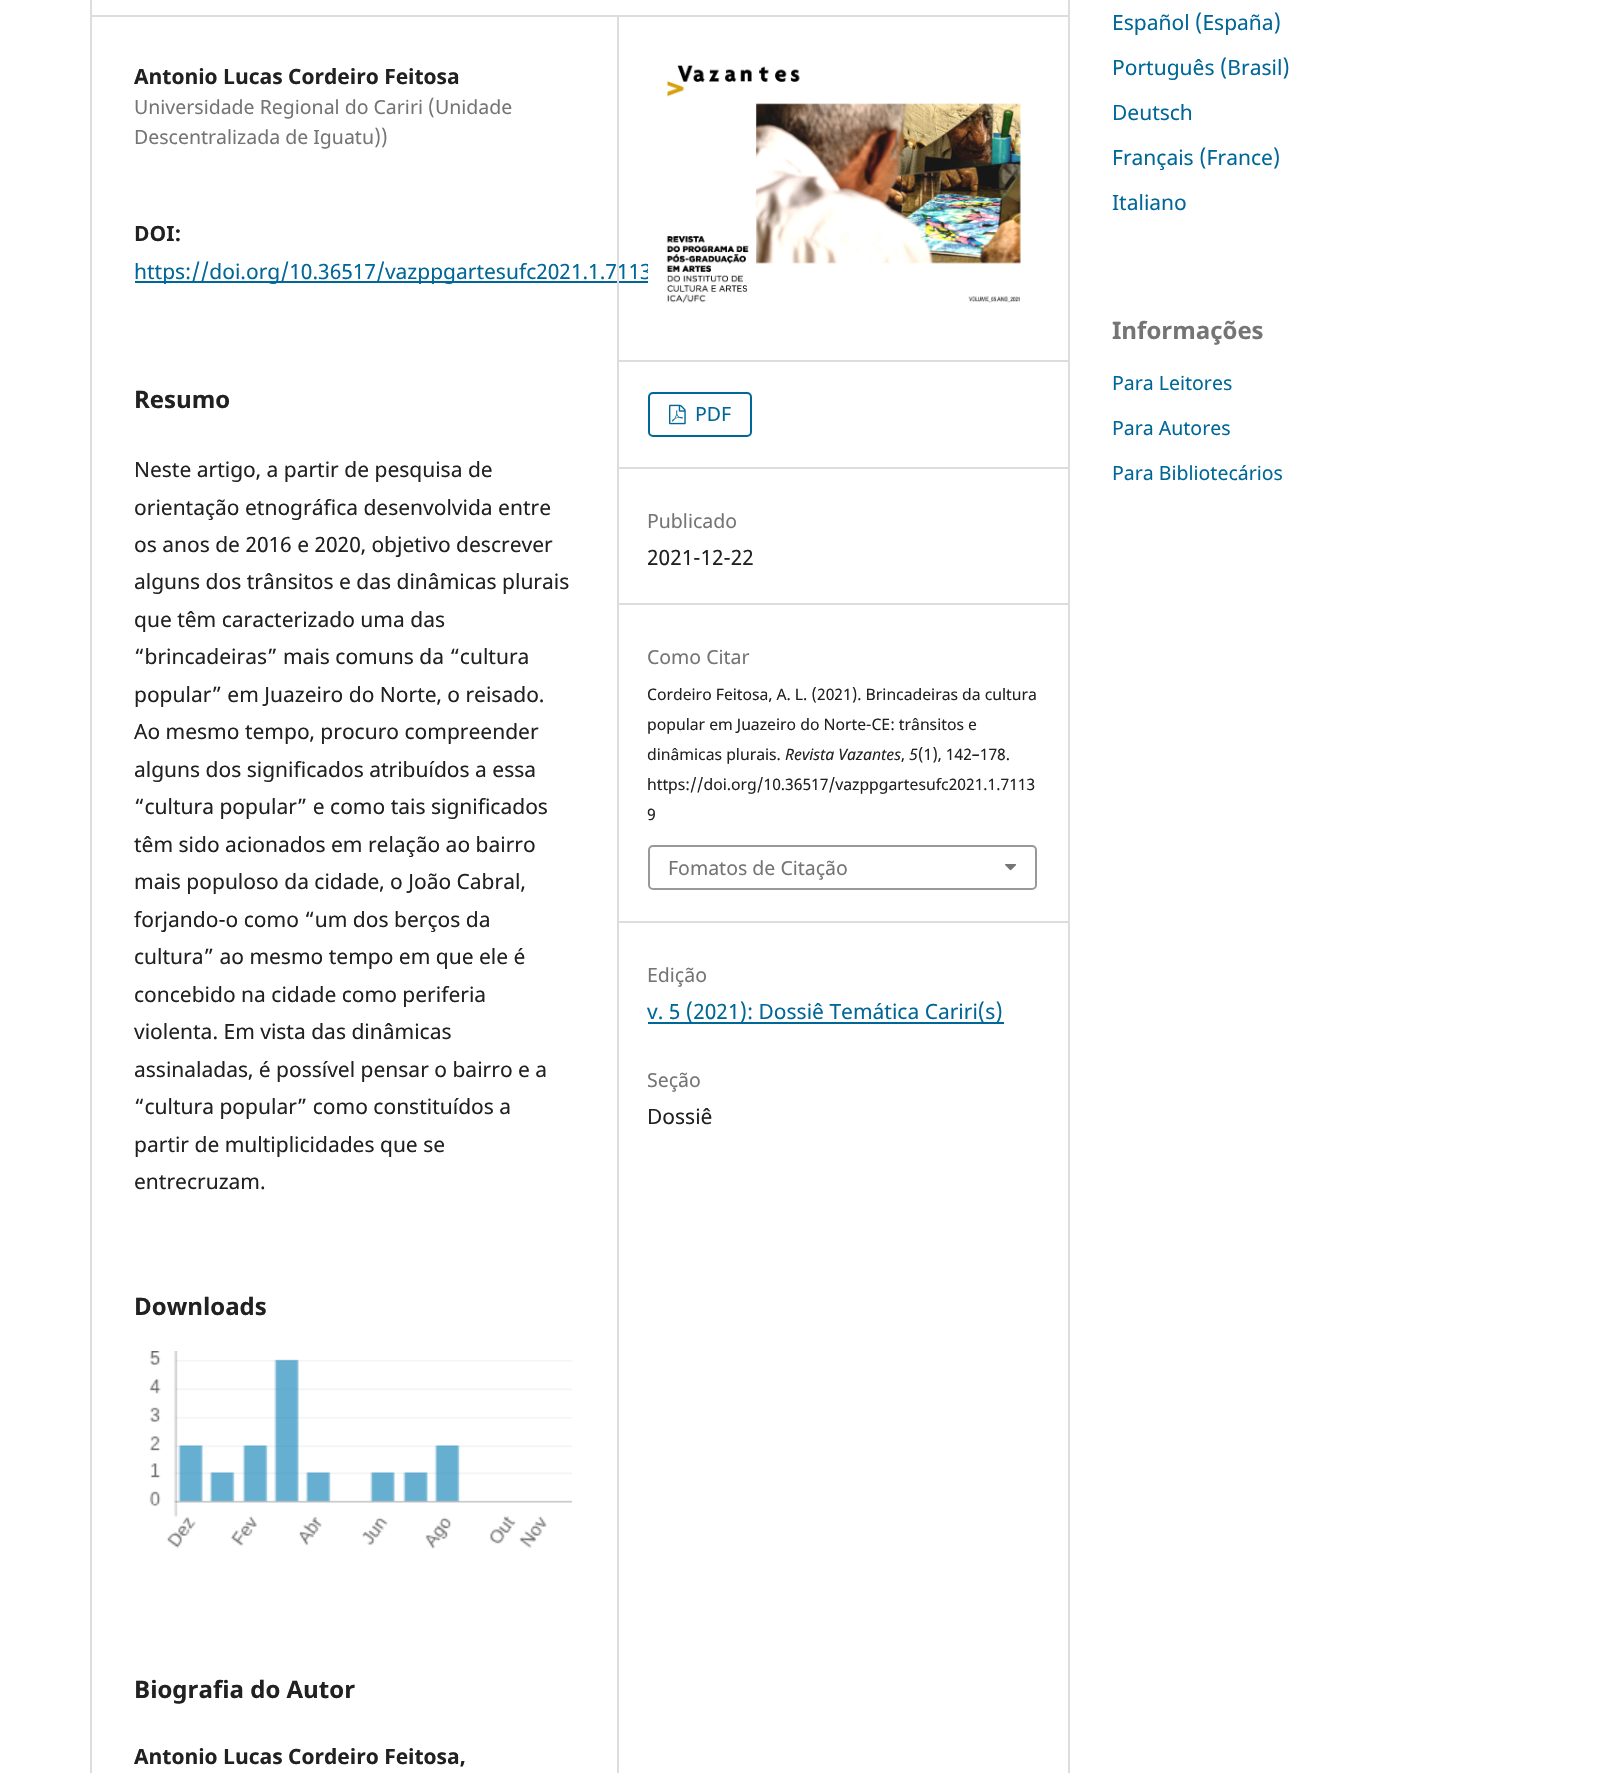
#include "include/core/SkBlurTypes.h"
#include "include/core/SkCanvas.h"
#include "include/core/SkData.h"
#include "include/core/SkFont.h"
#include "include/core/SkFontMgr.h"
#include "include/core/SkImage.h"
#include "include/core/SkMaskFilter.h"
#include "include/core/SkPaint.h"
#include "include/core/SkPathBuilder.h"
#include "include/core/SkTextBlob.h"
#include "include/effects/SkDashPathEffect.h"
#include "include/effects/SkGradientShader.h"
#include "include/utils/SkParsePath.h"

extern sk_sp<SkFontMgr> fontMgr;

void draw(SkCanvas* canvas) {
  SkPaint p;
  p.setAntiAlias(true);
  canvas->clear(SK_ColorWHITE);
  p.setColor(SkColorSetRGB(221, 221, 221));
  canvas->drawRect(SkRect::MakeLTRB(90, 15, 1068, 17), p);
  canvas->drawRect(SkRect::MakeLTRB(90, 0, 92, 1773), p);
  canvas->drawRect(SkRect::MakeLTRB(617, 1163, 619, 1773), p);
  p.setColor(SkColorSetRGB(0, 103, 152));
  canvas->drawRect(SkRect::MakeLTRB(135, 281, 648, 283), p);
  canvas->drawImageRect(SkImages::DeferredFromEncodedData(SkData::MakeFromFileName("images/1.png")), SkRect::MakeLTRB(149, 1351, 572, 1549), SkSamplingOptions());
  p.setStyle(SkPaint::kStroke_Style);
  p.setStrokeWidth(2);
  canvas->drawRoundRect(SkRect::MakeLTRB(649, 393, 751, 436), 4, 4, p);
  canvas->drawImageRect(SkImages::DeferredFromEncodedData(SkData::MakeFromFileName("images/3.png")), SkRect::MakeLTRB(669, 404, 686, 425), SkSamplingOptions());
  p.setColor(SkColorSetRGB(153, 153, 153));
  canvas->drawRoundRect(SkRect::MakeLTRB(649, 846, 1036, 889), 4, 4, p);
  canvas->drawImageRect(SkImages::DeferredFromEncodedData(SkData::MakeFromFileName("images/4.png")), SkRect::MakeLTRB(1005, 864, 1017, 871), SkSamplingOptions());
  p.setStyle(SkPaint::kFill_Style);
  p.setColor(SkColorSetRGB(0, 103, 152));
  canvas->drawRect(SkRect::MakeLTRB(648, 1022, 1004, 1024), p);
  p.setColor(SkColorSetRGB(221, 221, 221));
  canvas->drawRect(SkRect::MakeLTRB(1068, 0, 1070, 1773), p);
  SkFont font1(fontMgr->matchFamilyStyle("Noto Sans", SkFontStyle::Bold()), 21);
  font1.setSubpixel(true);
  p.setColor(SkColorSetRGB(33, 33, 33));
  canvas->drawString("Antonio Lucas Cordeiro Feitosa", 134, 84, font1, p);
  SkFont font2(fontMgr->matchFamilyStyle("Noto Sans", SkFontStyle::Normal()), 19.5f);
  font2.setSubpixel(true);
  p.setColor(SkColorSetRGB(117, 117, 117));
  canvas->drawString("Universidade Regional do Cariri (Unidade", 134, 114, font2, p);
  canvas->drawString("Descentralizada de Iguatu))", 134, 144, font2, p);
  p.setColor(SkColorSetRGB(33, 33, 33));
  canvas->drawString("DOI:", 134, 241, font1, p);
  SkFont font3(fontMgr->matchFamilyStyle("Noto Sans", SkFontStyle::Normal()), 21);
  font3.setSubpixel(true);
  p.setColor(SkColorSetRGB(0, 103, 152));
  canvas->drawString("https://doi.org/10.36517/vazppgartesufc2021.1.7113", 134, 279, font3, p);
  SkFont font4(fontMgr->matchFamilyStyle("Noto Sans", SkFontStyle::Bold()), 24);
  font4.setSubpixel(true);
  p.setColor(SkColorSetRGB(33, 33, 33));
  canvas->drawString("Resumo", 134, 408, font4, p);
  canvas->drawString("Neste artigo, a partir de pesquisa de", 134, 477, font3, p);
  canvas->drawString("orientação etnográfica desenvolvida entre", 134, 515, font3, p);
  canvas->drawString("os anos de 2016 e 2020, objetivo descrever", 134, 552, font3, p);
  canvas->drawString("alguns dos trânsitos e das dinâmicas plurais", 134, 589, font3, p);
  canvas->drawString("que têm caracterizado uma das", 134, 627, font3, p);
  canvas->drawString("“brincadeiras” mais comuns da “cultura", 134, 664, font3, p);
  canvas->drawString("popular” em Juazeiro do Norte, o reisado.", 134, 702, font3, p);
  canvas->drawString("Ao mesmo tempo, procuro compreender", 134, 739, font3, p);
  canvas->drawString("alguns dos significados atribuídos a essa", 134, 777, font3, p);
  canvas->drawString("“cultura popular” e como tais significados", 134, 814, font3, p);
  canvas->drawString("têm sido acionados em relação ao bairro", 134, 852, font3, p);
  canvas->drawString("mais populoso da cidade, o João Cabral,", 134, 889, font3, p);
  canvas->drawString("forjando-o como “um dos berços da", 134, 927, font3, p);
  canvas->drawString("cultura” ao mesmo tempo em que ele é", 134, 964, font3, p);
  canvas->drawString("concebido na cidade como periferia", 134, 1002, font3, p);
  canvas->drawString("violenta. Em vista das dinâmicas", 134, 1039, font3, p);
  canvas->drawString("assinaladas, é possível pensar o bairro e a", 134, 1077, font3, p);
  canvas->drawString("“cultura popular” como constituídos a", 134, 1114, font3, p);
  canvas->drawString("partir de multiplicidades que se", 134, 1152, font3, p);
  canvas->drawString("entrecruzam.", 134, 1189, font3, p);
  canvas->drawString("Downloads", 134, 1315, font4, p);
  canvas->drawString("Biografia do Autor", 134, 1698, font4, p);
  canvas->drawString("Antonio Lucas Cordeiro Feitosa,", 134, 1764, font1, p);
  p.setColor(SkColorSetRGB(221, 221, 221));
  canvas->drawRect(SkRect::MakeLTRB(617, 17, 619, 1163), p);
  canvas->drawRect(SkRect::MakeLTRB(618, 360, 1068, 362), p);
  canvas->drawImageRect(SkImages::DeferredFromEncodedData(SkData::MakeFromFileName("images/2.png")), SkRect::MakeLTRB(648, 65, 1021, 303), SkSamplingOptions());
  canvas->drawRect(SkRect::MakeLTRB(618, 467, 1068, 469), p);
  p.setColor(SkColorSetRGB(0, 103, 152));
  canvas->drawString("PDF", 695, 421, font2, p);
  p.setColor(SkColorSetRGB(221, 221, 221));
  canvas->drawRect(SkRect::MakeLTRB(618, 603, 1068, 605), p);
  p.setColor(SkColorSetRGB(117, 117, 117));
  canvas->drawString("Publicado", 647, 528, font2, p);
  p.setColor(SkColorSetRGB(33, 33, 33));
  canvas->drawString("2021-12-22", 647, 565, font3, p);
  p.setColor(SkColorSetRGB(221, 221, 221));
  canvas->drawRect(SkRect::MakeLTRB(618, 921, 1068, 923), p);
  p.setColor(SkColorSetRGB(117, 117, 117));
  canvas->drawString("Como Citar", 647, 664, font2, p);
  SkFont font5(fontMgr->matchFamilyStyle("Noto Sans", SkFontStyle::Normal()), 15.75f);
  font5.setSubpixel(true);
  p.setColor(SkColorSetRGB(33, 33, 33));
  canvas->drawString("Cordeiro Feitosa, A. L. (2021). Brincadeiras da cultura", 647, 700, font5, p);
  canvas->drawString("popular em Juazeiro do Norte-CE: trânsitos e", 647, 730, font5, p);
  canvas->drawString("dinâmicas plurais.", 647, 760, font5, p);
  SkFont font6(fontMgr->matchFamilyStyle("Noto Sans", SkFontStyle::Italic()), 15.75f);
  font6.setSubpixel(true);
  canvas->drawString("Revista Vazantes", 785, 760, font6, p);
  canvas->drawString(",", 901, 760, font5, p);
  canvas->drawString("5", 909, 760, font6, p);
  canvas->drawString("(1), 142–178.", 918, 760, font5, p);
  canvas->drawString("https://doi.org/10.36517/vazppgartesufc2021.1.7113", 647, 790, font5, p);
  canvas->drawString("9", 647, 820, font5, p);
  p.setColor(SkColorSetRGB(117, 117, 117));
  canvas->drawString("Fomatos de Citação", 668, 875, font2, p);
  canvas->drawString("Edição", 647, 982, font2, p);
  p.setColor(SkColorSetRGB(0, 103, 152));
  canvas->drawString("v. 5 (2021): Dossiê Temática Cariri(s)", 647, 1019, font3, p);
  p.setColor(SkColorSetRGB(117, 117, 117));
  canvas->drawString("Seção", 647, 1087, font2, p);
  p.setColor(SkColorSetRGB(33, 33, 33));
  canvas->drawString("Dossiê", 647, 1124, font3, p);
  p.setColor(SkColorSetRGB(0, 103, 152));
  canvas->drawString("Español (España)", 1112, 30, font3, p);
  canvas->drawString("Português (Brasil)", 1112, 75, font3, p);
  canvas->drawString("Deutsch", 1112, 120, font3, p);
  canvas->drawString("Français (France)", 1112, 165, font3, p);
  canvas->drawString("Italiano", 1112, 210, font3, p);
  p.setColor(SkColorSetRGB(117, 117, 117));
  canvas->drawString("Informações", 1112, 339, font4, p);
  p.setColor(SkColorSetRGB(0, 103, 152));
  canvas->drawString("Para Leitores", 1112, 390, font2, p);
  canvas->drawString("Para Autores", 1112, 435, font2, p);
  canvas->drawString("Para Bibliotecários", 1112, 480, font2, p);
}
